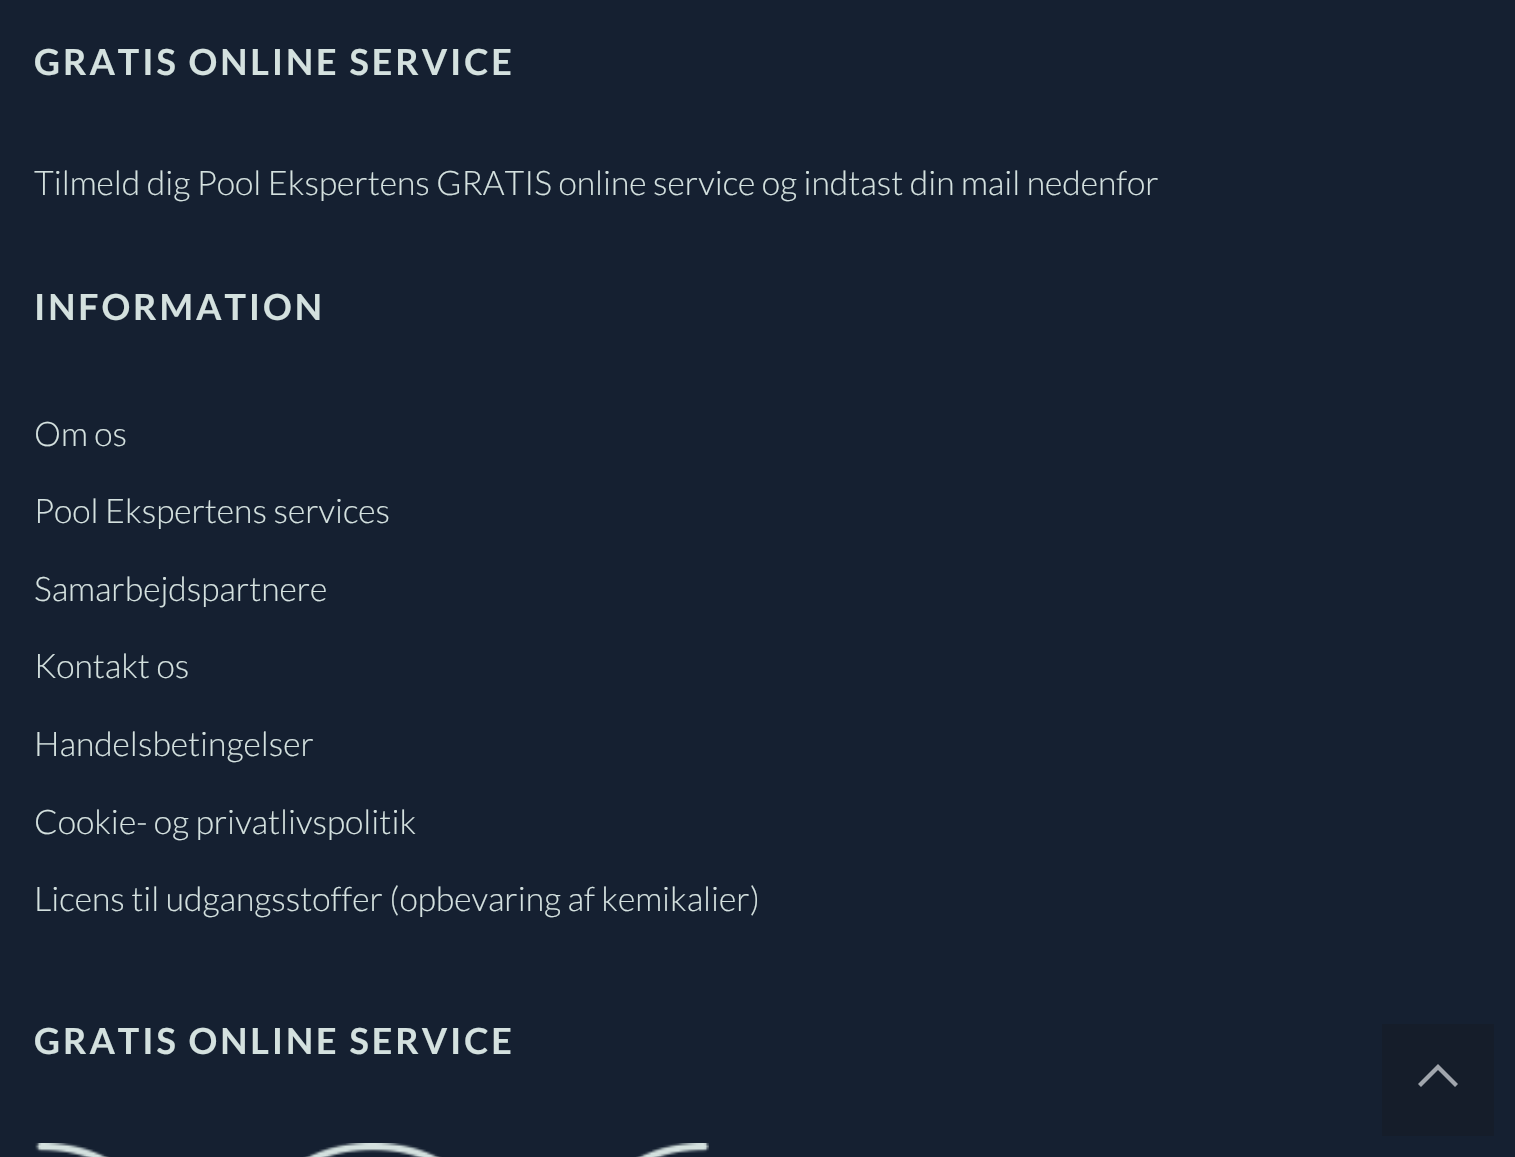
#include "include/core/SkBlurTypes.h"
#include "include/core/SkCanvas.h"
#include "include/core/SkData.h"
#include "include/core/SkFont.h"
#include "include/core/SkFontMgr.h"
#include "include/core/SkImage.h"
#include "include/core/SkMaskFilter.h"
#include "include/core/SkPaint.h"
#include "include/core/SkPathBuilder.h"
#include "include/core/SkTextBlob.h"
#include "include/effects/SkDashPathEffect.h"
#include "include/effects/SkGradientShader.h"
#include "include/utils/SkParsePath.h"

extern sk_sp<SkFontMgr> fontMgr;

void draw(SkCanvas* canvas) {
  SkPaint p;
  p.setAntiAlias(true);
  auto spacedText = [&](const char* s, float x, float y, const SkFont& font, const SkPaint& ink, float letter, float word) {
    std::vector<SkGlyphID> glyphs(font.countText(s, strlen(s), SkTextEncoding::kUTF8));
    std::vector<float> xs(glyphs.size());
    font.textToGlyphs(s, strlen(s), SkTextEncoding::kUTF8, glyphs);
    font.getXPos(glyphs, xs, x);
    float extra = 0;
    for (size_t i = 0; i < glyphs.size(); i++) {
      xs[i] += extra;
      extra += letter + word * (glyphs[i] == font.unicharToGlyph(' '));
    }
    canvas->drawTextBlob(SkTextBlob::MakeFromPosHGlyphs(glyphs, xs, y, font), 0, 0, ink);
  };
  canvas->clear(SkColorSetRGB(21, 32, 49));
  canvas->drawImageRect(SkImages::DeferredFromEncodedData(SkData::MakeFromFileName("images/1.png")), SkRect::MakeLTRB(35, 1143, 709, 1157), SkSamplingOptions());
  p.setColor(SkColorSetRGB(21, 29, 42));
  canvas->drawRect(SkRect::MakeLTRB(1382, 1024, 1494, 1136), p);
  p.setColor(SkColorSetRGB(161, 166, 173));
  canvas->drawPath(SkPathBuilder().moveTo(1418, 1084).lineTo(1421, 1087).lineTo(1438, 1070).lineTo(1455, 1087).lineTo(1458, 1084).lineTo(1438, 1064).close().detach(), p);
  SkFont font1(fontMgr->matchFamilyStyle("Lato", SkFontStyle::Bold()), 36);
  font1.setSubpixel(true);
  p.setColor(SkColorSetRGB(212, 225, 223));
  spacedText("GRATIS ONLINE SERVICE", 34, 75, font1, p, 2.9f, 0);
  SkFont font2(fontMgr->matchFamilyStyle("Lato", SkFontStyle(300, SkFontStyle::kNormal_Width, SkFontStyle::kUpright_Slant)), 33.75f);
  font2.setSubpixel(true);
  canvas->drawString("Tilmeld dig Pool Ekspertens GRATIS online service og indtast din mail nedenfor", 34, 195, font2, p);
  spacedText("INFORMATION", 34, 320, font1, p, 2.9f, 0);
  canvas->drawString("Om os", 34, 446, font2, p);
  canvas->drawString("Pool Ekspertens services", 34, 523, font2, p);
  canvas->drawString("Samarbejdspartnere", 34, 601, font2, p);
  canvas->drawString("Kontakt os", 34, 678, font2, p);
  canvas->drawString("Handelsbetingelser", 34, 756, font2, p);
  canvas->drawString("Cookie- og privatlivspolitik", 34, 834, font2, p);
  canvas->drawString("Licens til udgangsstoffer (opbevaring af kemikalier)", 34, 911, font2, p);
  spacedText("GRATIS ONLINE SERVICE", 34, 1054, font1, p, 2.9f, 0);
}
